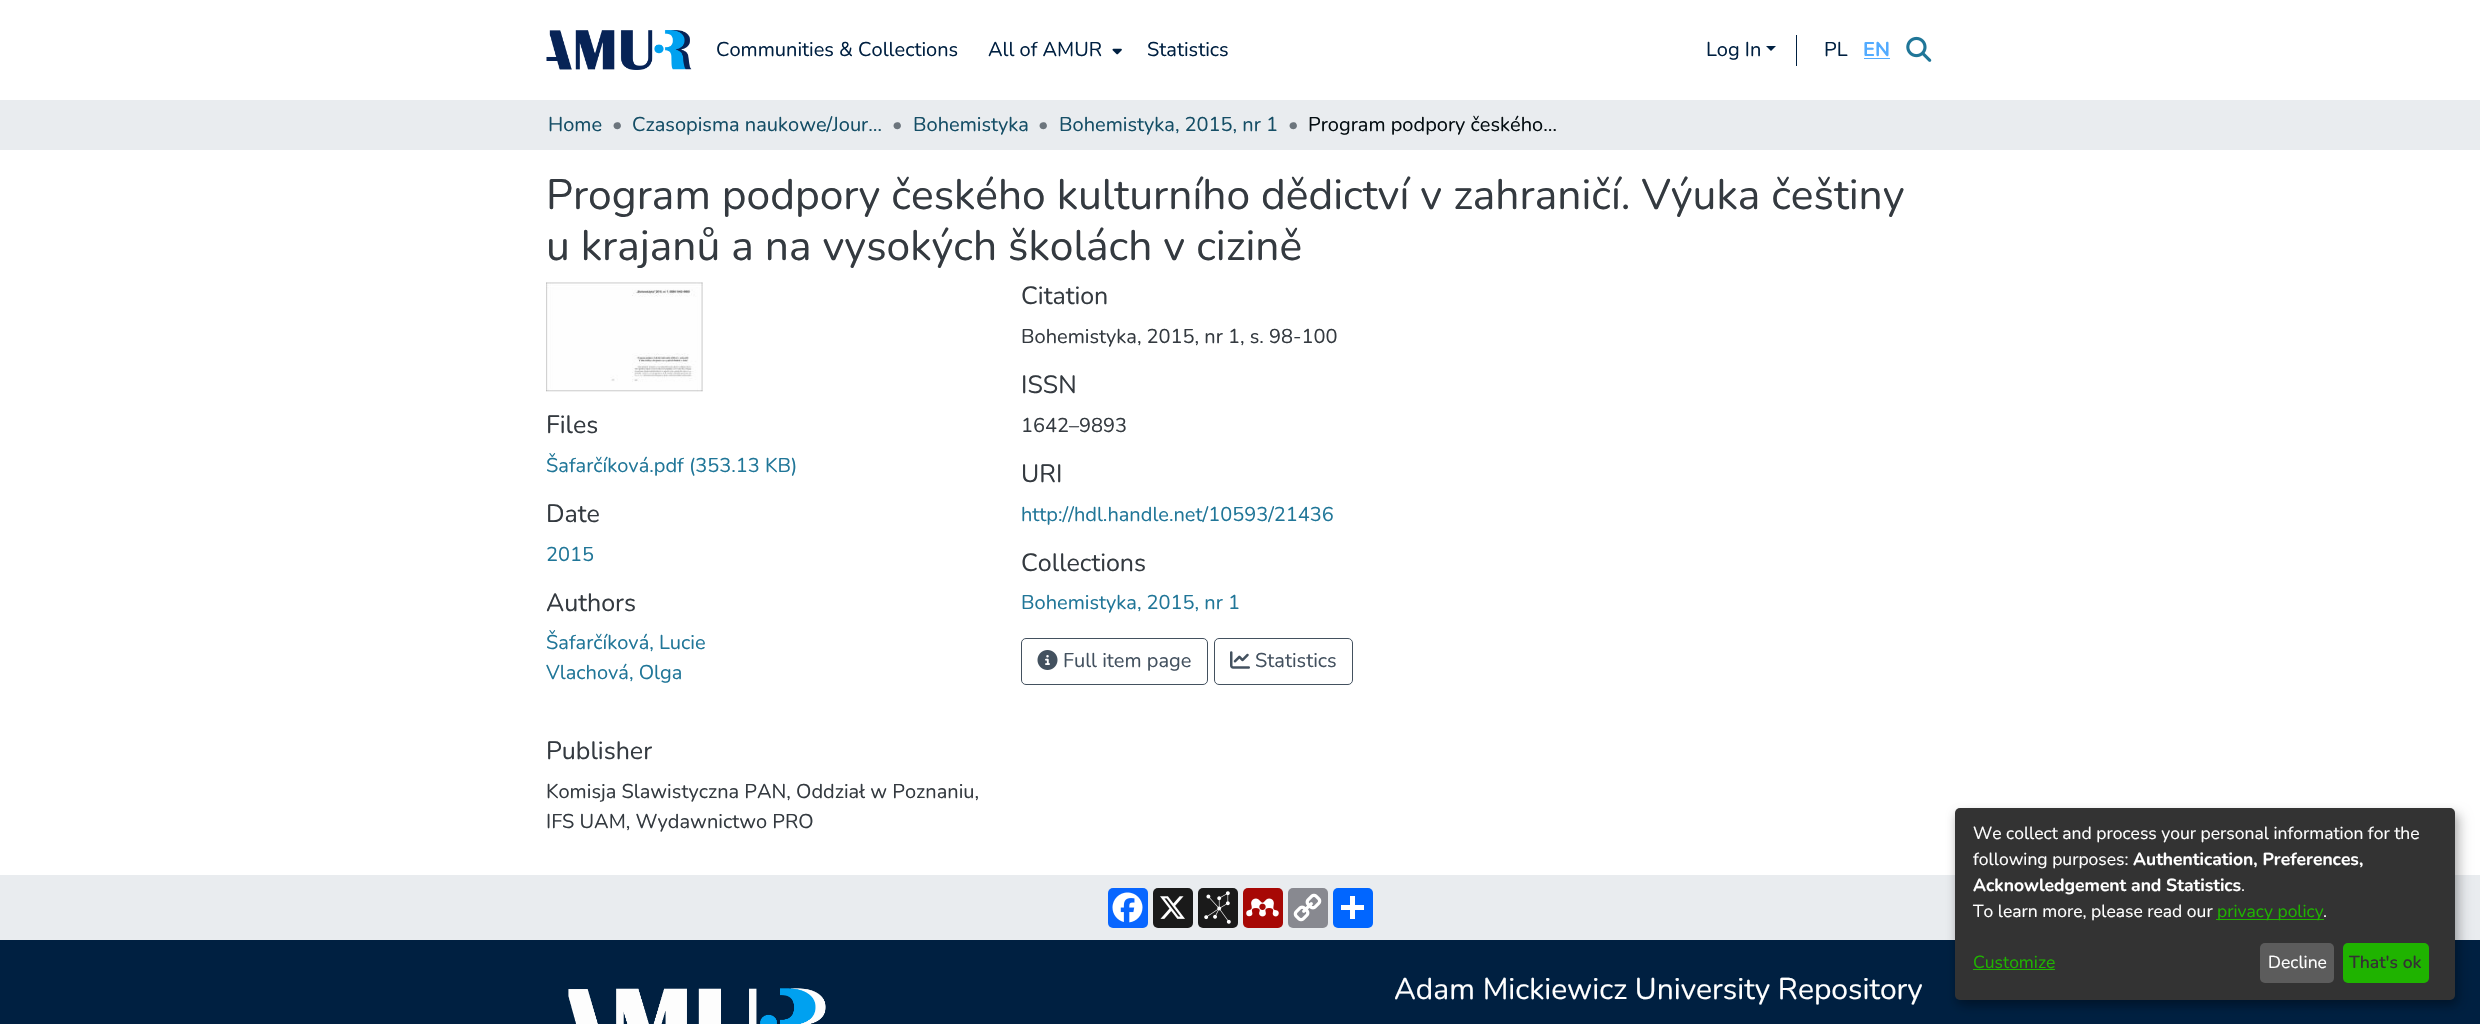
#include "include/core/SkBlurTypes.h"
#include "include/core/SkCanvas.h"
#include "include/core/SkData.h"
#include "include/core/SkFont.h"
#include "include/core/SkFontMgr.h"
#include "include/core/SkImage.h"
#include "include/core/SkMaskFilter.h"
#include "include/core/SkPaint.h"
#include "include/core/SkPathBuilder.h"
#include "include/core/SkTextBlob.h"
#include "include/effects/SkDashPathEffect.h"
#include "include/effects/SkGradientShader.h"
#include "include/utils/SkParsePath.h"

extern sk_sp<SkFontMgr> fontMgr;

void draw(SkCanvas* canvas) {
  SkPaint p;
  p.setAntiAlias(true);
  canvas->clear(SK_ColorWHITE);
  canvas->drawImageRect(SkImages::DeferredFromEncodedData(SkData::MakeFromFileName("images/1.png")), SkRect::MakeLTRB(546, 30, 692, 70), SkSamplingOptions());
  canvas->drawImageRect(SkImages::DeferredFromEncodedData(SkData::MakeFromFileName("images/2.png")), SkRect::MakeLTRB(1112, 48, 1122, 55), SkSamplingOptions());
  p.setColor(SkColorSetRGB(0, 32, 65));
  canvas->drawPath(SkPathBuilder().moveTo(1766, 46).lineTo(1776, 46).lineTo(1771, 51).close().detach(), p);
  canvas->drawRect(SkRect::MakeLTRB(1796, 35, 1797, 66), p);
  p.setColor(SkColorSetRGB(82, 171, 255));
  canvas->drawRect(SkRect::MakeLTRB(1864, 58, 1890, 59), p);
  canvas->drawImageRect(SkImages::DeferredFromEncodedData(SkData::MakeFromFileName("images/3.png")), SkRect::MakeLTRB(1906, 36, 1932, 62), SkSamplingOptions());
  p.setColor(SkColorSetRGB(233, 236, 239));
  canvas->drawRect(SkRect::MakeLTRB(0, 100, 2480, 150), p);
  canvas->drawImageRect(SkImages::DeferredFromEncodedData(SkData::MakeFromFileName("images/4.png")), SkRect::MakeLTRB(546, 282, 703, 392), SkSamplingOptions());
  p.setStyle(SkPaint::kStroke_Style);
  p.setStrokeWidth(1);
  p.setColor(SkColorSetRGB(67, 81, 95));
  canvas->drawRoundRect(SkRect::MakeLTRB(1021.5f, 638.5f, 1207.5f, 684.5f), 4.5f, 4.5f, p);
  canvas->drawImageRect(SkImages::DeferredFromEncodedData(SkData::MakeFromFileName("images/5.png")), SkRect::MakeLTRB(1037, 650, 1058, 670), SkSamplingOptions());
  canvas->drawRoundRect(SkRect::MakeLTRB(1214.5f, 638.5f, 1352.5f, 684.5f), 4.5f, 4.5f, p);
  canvas->drawImageRect(SkImages::DeferredFromEncodedData(SkData::MakeFromFileName("images/6.png")), SkRect::MakeLTRB(1230, 651, 1250, 669), SkSamplingOptions());
  p.setStyle(SkPaint::kFill_Style);
  p.setColor(SkColorSetRGB(0, 32, 65));
  canvas->drawRect(SkRect::MakeLTRB(0, 940, 2480, 1024), p);
  p.setColor(SkColorSetRGB(233, 236, 239));
  canvas->drawRect(SkRect::MakeLTRB(0, 875, 2480, 940), p);
  p.setColor(SkColorSetRGB(8, 102, 255));
  canvas->drawRoundRect(SkRect::MakeLTRB(1108, 888, 1148, 928), 5, 5, p);
  canvas->drawImageRect(SkImages::DeferredFromEncodedData(SkData::MakeFromFileName("images/7.png")), SkRect::MakeLTRB(1112, 892, 1143, 923), SkSamplingOptions());
  p.setColor(SkColorSetRGB(26, 26, 26));
  canvas->drawRoundRect(SkRect::MakeLTRB(1153, 888, 1193, 928), 5, 5, p);
  canvas->drawImageRect(SkImages::DeferredFromEncodedData(SkData::MakeFromFileName("images/8.png")), SkRect::MakeLTRB(1160, 896, 1185, 919), SkSamplingOptions());
  canvas->drawRoundRect(SkRect::MakeLTRB(1198, 888, 1238, 928), 5, 5, p);
  canvas->drawImageRect(SkImages::DeferredFromEncodedData(SkData::MakeFromFileName("images/9.png")), SkRect::MakeLTRB(1204, 891, 1231, 924), SkSamplingOptions());
  p.setColor(SkColorSetRGB(167, 8, 5));
  canvas->drawRoundRect(SkRect::MakeLTRB(1243, 888, 1283, 928), 5, 5, p);
  canvas->drawImageRect(SkImages::DeferredFromEncodedData(SkData::MakeFromFileName("images/10.png")), SkRect::MakeLTRB(1246, 898, 1279, 917), SkSamplingOptions());
  p.setColor(SkColorSetRGB(136, 137, 144));
  canvas->drawRoundRect(SkRect::MakeLTRB(1288, 888, 1328, 928), 5, 5, p);
  canvas->drawImageRect(SkImages::DeferredFromEncodedData(SkData::MakeFromFileName("images/11.png")), SkRect::MakeLTRB(1293, 893, 1322, 922), SkSamplingOptions());
  p.setColor(SkColorSetRGB(1, 102, 255));
  canvas->drawRoundRect(SkRect::MakeLTRB(1333, 888, 1373, 928), 5, 5, p);
  p.setColor(SK_ColorWHITE);
  canvas->drawRect(SkRect::MakeLTRB(1350, 896, 1355, 919), p);
  canvas->drawRect(SkRect::MakeLTRB(1341, 905, 1364, 910), p);
  canvas->drawImageRect(SkImages::DeferredFromEncodedData(SkData::MakeFromFileName("images/12.png")), SkRect::MakeLTRB(568, 988, 826, 1024), SkSamplingOptions());
  p.setColor(SkColorSetARGB(48, 0, 0, 0));
  p.setMaskFilter(SkMaskFilter::MakeBlur(kNormal_SkBlurStyle, 6));
  canvas->drawRoundRect(SkRect::MakeLTRB(1961, 814, 2461, 1006), 5, 5, p);
  p.setMaskFilter(nullptr);
  p.setColor(SkColorSetARGB(51, 0, 0, 0));
  p.setMaskFilter(SkMaskFilter::MakeBlur(kNormal_SkBlurStyle, 4));
  canvas->drawRoundRect(SkRect::MakeLTRB(1955, 813, 2455, 1005), 5, 5, p);
  p.setMaskFilter(nullptr);
  p.setColor(SkColorSetRGB(51, 51, 51));
  canvas->drawRoundRect(SkRect::MakeLTRB(1955, 808, 2455, 1000), 5, 5, p);
  p.setColor(SkColorSetRGB(31, 179, 0));
  canvas->drawRect(SkRect::MakeLTRB(2216, 919, 2324, 920), p);
  canvas->drawRect(SkRect::MakeLTRB(1973, 969, 2055, 970), p);
  p.setColor(SkColorSetRGB(92, 92, 92));
  canvas->drawRoundRect(SkRect::MakeLTRB(2260, 943, 2334, 983), 5, 5, p);
  p.setColor(SkColorSetRGB(31, 179, 0));
  canvas->drawRoundRect(SkRect::MakeLTRB(2343, 943, 2429, 983), 5, 5, p);
  SkFont font1(fontMgr->matchFamilyStyle("Nunito", SkFontStyle::Normal()), 20);
  font1.setSubpixel(true);
  p.setColor(SkColorSetRGB(0, 32, 65));
  canvas->drawString("Communities & Collections", 716, 56, font1, p);
  canvas->drawString("All of AMUR", 988, 56, font1, p);
  canvas->drawString("Statistics", 1147, 56, font1, p);
  canvas->drawString("Log In", 1706, 56, font1, p);
  canvas->drawString("PL", 1824, 56, font1, p);
  SkFont font2(fontMgr->matchFamilyStyle("Nunito", SkFontStyle::Bold()), 20);
  font2.setSubpixel(true);
  p.setColor(SkColorSetRGB(82, 171, 255));
  canvas->drawString("EN", 1863, 56, font2, p);
  p.setColor(SkColorSetRGB(21, 78, 102));
  canvas->drawString("Home", 548, 131, font1, p);
  p.setColor(SkColorSetRGB(108, 117, 125));
  canvas->drawString("•", 612, 131, font1, p);
  p.setColor(SkColorSetRGB(21, 78, 102));
  canvas->drawString("Czasopisma naukowe/Jour…", 632, 131, font1, p);
  p.setColor(SkColorSetRGB(108, 117, 125));
  canvas->drawString("•", 892, 131, font1, p);
  p.setColor(SkColorSetRGB(21, 78, 102));
  canvas->drawString("Bohemistyka", 913, 131, font1, p);
  p.setColor(SkColorSetRGB(108, 117, 125));
  canvas->drawString("•", 1038, 131, font1, p);
  p.setColor(SkColorSetRGB(21, 78, 102));
  canvas->drawString("Bohemistyka, 2015, nr 1", 1059, 131, font1, p);
  p.setColor(SkColorSetRGB(108, 117, 125));
  canvas->drawString("•", 1288, 131, font1, p);
  p.setColor(SkColorSetRGB(4, 13, 17));
  canvas->drawString("Program podpory českého…", 1308, 131, font1, p);
  SkFont font3(fontMgr->matchFamilyStyle("Nunito", SkFontStyle::Normal()), 42.5f);
  font3.setSubpixel(true);
  p.setColor(SkColorSetRGB(52, 58, 64));
  canvas->drawString("Program podpory českého kulturního dědictví v zahraničí. Výuka češtiny", 546, 209, font3, p);
  canvas->drawString("u krajanů a na vysokých školách v cizině", 546, 260, font3, p);
  SkFont font4(fontMgr->matchFamilyStyle("Nunito", SkFontStyle::Normal()), 25);
  font4.setSubpixel(true);
  canvas->drawString("Files", 546, 433, font4, p);
  p.setColor(SkColorSetRGB(32, 118, 152));
  canvas->drawString("Šafarčíková.pdf (353.13 KB)", 546, 472, font1, p);
  p.setColor(SkColorSetRGB(52, 58, 64));
  canvas->drawString("Date", 546, 522, font4, p);
  p.setColor(SkColorSetRGB(32, 118, 152));
  canvas->drawString("2015", 546, 561, font1, p);
  p.setColor(SkColorSetRGB(52, 58, 64));
  canvas->drawString("Authors", 546, 611, font4, p);
  p.setColor(SkColorSetRGB(32, 118, 152));
  canvas->drawString("Šafarčíková, Lucie", 546, 649, font1, p);
  canvas->drawString("Vlachová, Olga", 546, 679, font1, p);
  p.setColor(SkColorSetRGB(52, 58, 64));
  canvas->drawString("Publisher", 546, 759, font4, p);
  canvas->drawString("Komisja Slawistyczna PAN, Oddział w Poznaniu,", 546, 798, font1, p);
  canvas->drawString("IFS UAM, Wydawnictwo PRO", 546, 828, font1, p);
  canvas->drawString("Citation", 1021, 304, font4, p);
  canvas->drawString("Bohemistyka, 2015, nr 1, s. 98-100", 1021, 343, font1, p);
  canvas->drawString("ISSN", 1021, 393, font4, p);
  canvas->drawString("1642–9893", 1021, 432, font1, p);
  canvas->drawString("URI", 1021, 482, font4, p);
  p.setColor(SkColorSetRGB(32, 118, 152));
  canvas->drawString("http://hdl.handle.net/10593/21436", 1021, 521, font1, p);
  p.setColor(SkColorSetRGB(52, 58, 64));
  canvas->drawString("Collections", 1021, 571, font4, p);
  p.setColor(SkColorSetRGB(32, 118, 152));
  canvas->drawString("Bohemistyka, 2015, nr 1", 1021, 609, font1, p);
  p.setColor(SkColorSetRGB(67, 81, 95));
  canvas->drawString("Full item page", 1063, 667, font1, p);
  canvas->drawString("Statistics", 1255, 667, font1, p);
  SkFont font5(fontMgr->matchFamilyStyle("Nunito", SkFontStyle::Normal()), 30);
  font5.setSubpixel(true);
  p.setColor(SK_ColorWHITE);
  canvas->drawString("Adam Mickiewicz University Repository", 1394, 999, font5, p);
  SkFont font6(fontMgr->matchFamilyStyle("Nunito", SkFontStyle::Normal()), 17.5f);
  font6.setSubpixel(true);
  canvas->drawString("We collect and process your personal information for the", 1973, 839, font6, p);
  canvas->drawString("following purposes:", 1973, 865, font6, p);
  SkFont font7(fontMgr->matchFamilyStyle("Nunito", SkFontStyle::Bold()), 17.5f);
  font7.setSubpixel(true);
  canvas->drawString("Authentication, Preferences,", 2133, 865, font7, p);
  canvas->drawString("Acknowledgement and Statistics", 1973, 891, font7, p);
  canvas->drawString(".", 2241, 891, font6, p);
  canvas->drawString("To learn more, please read our", 1973, 917, font6, p);
  p.setColor(SkColorSetRGB(31, 179, 0));
  canvas->drawString("privacy policy", 2217, 917, font6, p);
  p.setColor(SK_ColorWHITE);
  canvas->drawString(".", 2323, 917, font6, p);
  p.setColor(SkColorSetRGB(31, 179, 0));
  canvas->drawString("Customize", 1973, 968, font6, p);
  p.setColor(SK_ColorWHITE);
  canvas->drawString("Decline", 2268, 968, font6, p);
  SkFont font8(fontMgr->matchFamilyStyle("Nunito", SkFontStyle(600, SkFontStyle::kNormal_Width, SkFontStyle::kUpright_Slant)), 17.5f);
  font8.setSubpixel(true);
  p.setColor(SkColorSetRGB(51, 51, 51));
  canvas->drawString("That's ok", 2349, 968, font8, p);
}
